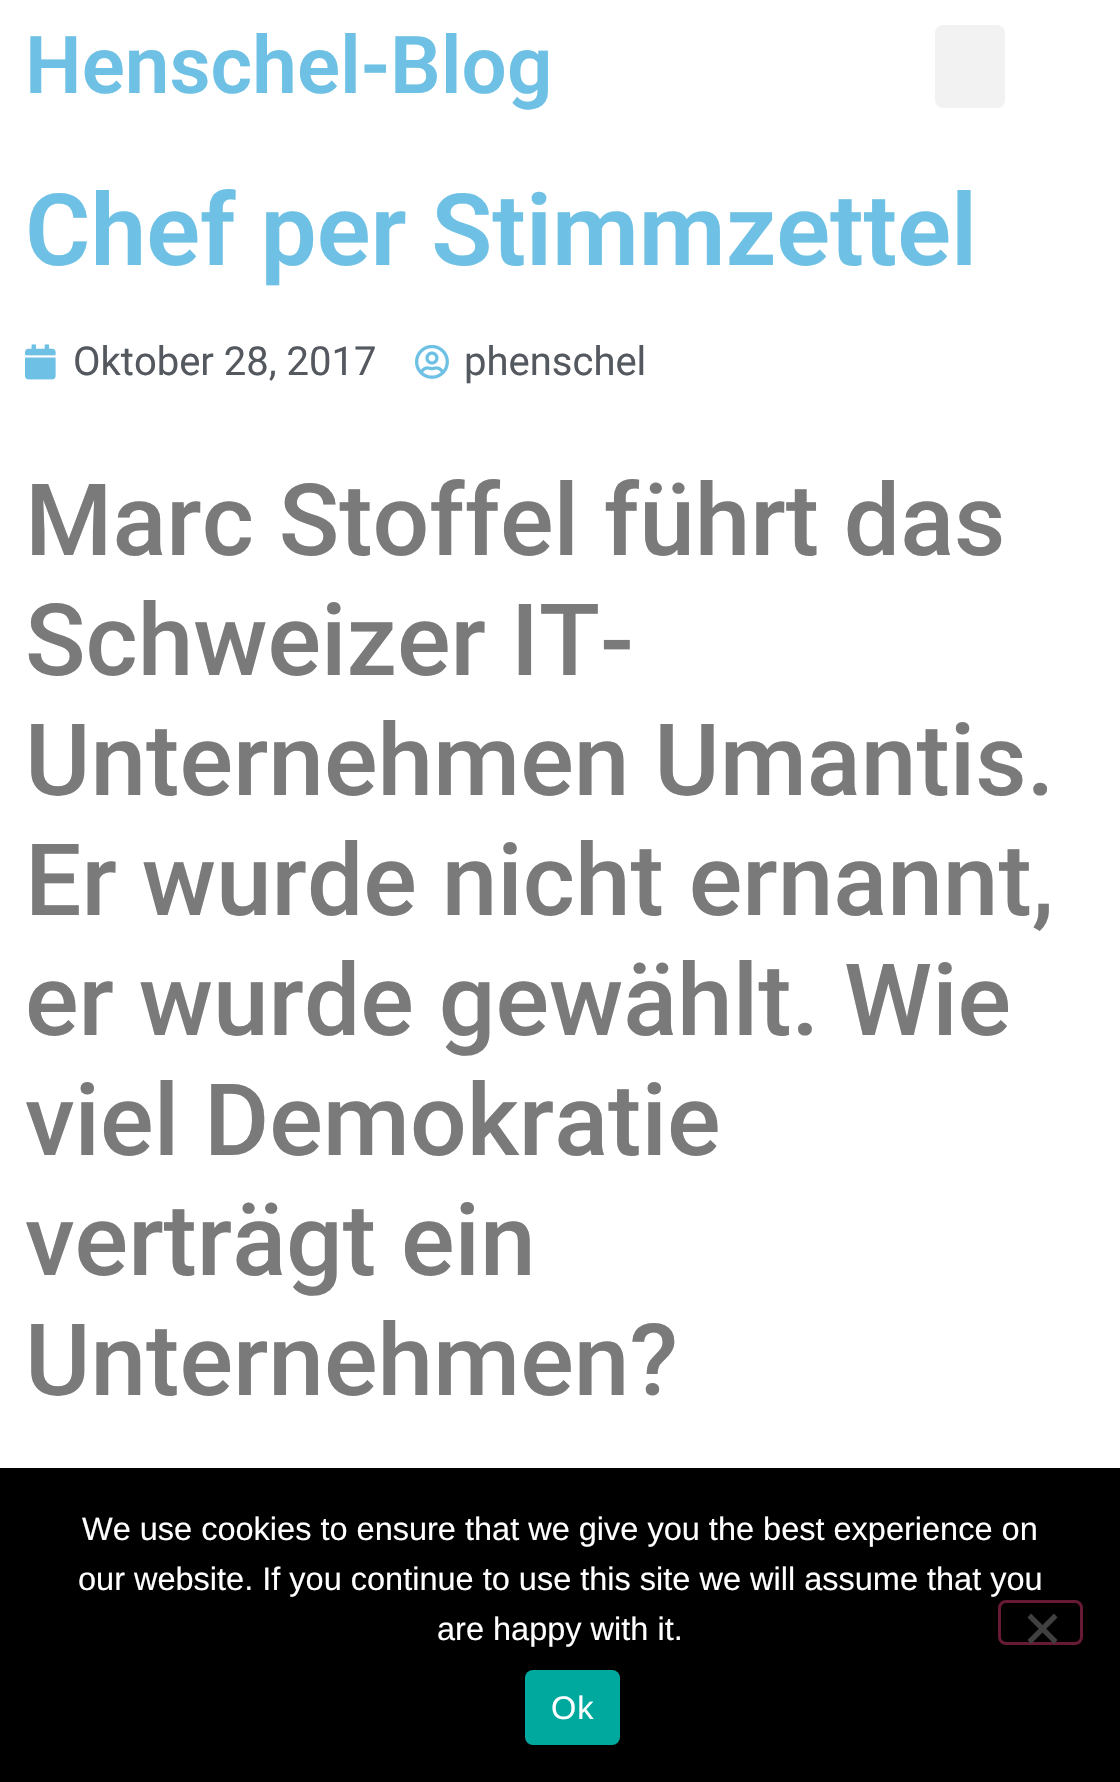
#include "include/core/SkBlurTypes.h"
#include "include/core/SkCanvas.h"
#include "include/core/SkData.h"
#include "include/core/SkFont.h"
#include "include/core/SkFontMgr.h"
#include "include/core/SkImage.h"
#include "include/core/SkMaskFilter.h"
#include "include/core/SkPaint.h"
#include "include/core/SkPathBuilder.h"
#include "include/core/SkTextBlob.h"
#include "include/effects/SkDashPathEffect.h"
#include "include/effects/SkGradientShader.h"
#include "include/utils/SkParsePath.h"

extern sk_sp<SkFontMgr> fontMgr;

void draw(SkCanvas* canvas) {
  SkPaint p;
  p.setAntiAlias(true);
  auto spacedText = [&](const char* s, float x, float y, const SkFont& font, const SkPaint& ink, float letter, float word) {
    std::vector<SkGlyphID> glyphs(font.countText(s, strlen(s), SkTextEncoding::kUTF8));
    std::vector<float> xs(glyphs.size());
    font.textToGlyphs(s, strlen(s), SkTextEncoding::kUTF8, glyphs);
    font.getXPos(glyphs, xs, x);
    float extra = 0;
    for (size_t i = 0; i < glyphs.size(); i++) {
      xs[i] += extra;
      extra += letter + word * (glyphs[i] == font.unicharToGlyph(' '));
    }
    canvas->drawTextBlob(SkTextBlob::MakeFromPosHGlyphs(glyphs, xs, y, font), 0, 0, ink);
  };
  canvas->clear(SK_ColorWHITE);
  p.setColor(SkColorSetRGB(242, 242, 242));
  canvas->drawRoundRect(SkRect::MakeLTRB(935, 25, 1005, 108), 8, 8, p);
  canvas->drawImageRect(SkImages::DeferredFromEncodedData(SkData::MakeFromFileName("images/1.png")), SkRect::MakeLTRB(25, 344, 56, 380), SkSamplingOptions());
  canvas->drawImageRect(SkImages::DeferredFromEncodedData(SkData::MakeFromFileName("images/2.png")), SkRect::MakeLTRB(415, 344, 449, 379), SkSamplingOptions());
  p.setColor(SK_ColorBLACK);
  canvas->drawRect(SkRect::MakeLTRB(0, 1468, 1120, 1782), p);
  p.setStyle(SkPaint::kStroke_Style);
  p.setStrokeWidth(3);
  p.setColor(SkColorSetRGB(102, 26, 51));
  canvas->drawRoundRect(SkRect::MakeLTRB(999.5f, 1601.5f, 1081.5f, 1643.5f), 6.5f, 6.5f, p);
  p.setStyle(SkPaint::kFill_Style);
  p.setColor(SkColorSetRGB(64, 64, 64));
  canvas->drawPath(SkPathBuilder().moveTo(1054, 1613.5f).lineTo(1057.5f, 1617.5f).lineTo(1031, 1644).lineTo(1027.5f, 1640).close().detach(), p);
  canvas->drawPath(SkPathBuilder().moveTo(1027.5f, 1617.5f).lineTo(1031, 1613.5f).lineTo(1057.5f, 1640).lineTo(1054, 1644).close().detach(), p);
  p.setColor(SkColorSetRGB(0, 169, 157));
  canvas->drawRoundRect(SkRect::MakeLTRB(525, 1670, 620, 1745), 8, 8, p);
  SkFont font1(fontMgr->matchFamilyStyle("Roboto", SkFontStyle(600, SkFontStyle::kNormal_Width, SkFontStyle::kUpright_Slant)), 80);
  font1.setSubpixel(true);
  p.setColor(SkColorSetRGB(110, 193, 228));
  canvas->drawString("Henschel-Blog", 25, 93, font1, p);
  SkFont font2(fontMgr->matchFamilyStyle("Roboto", SkFontStyle(600, SkFontStyle::kNormal_Width, SkFontStyle::kUpright_Slant)), 100);
  font2.setSubpixel(true);
  canvas->drawString("Chef per Stimmzettel", 25, 265, font2, p);
  SkFont font3(fontMgr->matchFamilyStyle("Roboto", SkFontStyle::Normal()), 40);
  font3.setSubpixel(true);
  p.setColor(SkColorSetRGB(84, 89, 95));
  canvas->drawString("Oktober 28, 2017", 73, 375, font3, p);
  canvas->drawString("phenschel", 464, 375, font3, p);
  SkFont font4(fontMgr->matchFamilyStyle("Roboto", SkFontStyle(500, SkFontStyle::kNormal_Width, SkFontStyle::kUpright_Slant)), 100);
  font4.setSubpixel(true);
  p.setColor(SkColorSetRGB(122, 122, 122));
  canvas->drawString("Marc Stoffel führt das", 25, 555, font4, p);
  canvas->drawString("Schweizer IT-", 25, 675, font4, p);
  canvas->drawString("Unternehmen Umantis.", 25, 795, font4, p);
  canvas->drawString("Er wurde nicht ernannt,", 25, 915, font4, p);
  canvas->drawString("er wurde gewählt. Wie", 25, 1035, font4, p);
  canvas->drawString("viel Demokratie", 25, 1155, font4, p);
  canvas->drawString("verträgt ein", 25, 1275, font4, p);
  canvas->drawString("Unternehmen?", 25, 1395, font4, p);
  SkFont font5(fontMgr->matchFamilyStyle("Liberation Sans", SkFontStyle::Normal()), 32.5f);
  font5.setSubpixel(true);
  p.setColor(SK_ColorWHITE);
  canvas->drawString("We use cookies to ensure that we give you the best experience on", 82, 1540, font5, p);
  canvas->drawString("our website. If you continue to use this site we will assume that you", 78, 1590, font5, p);
  canvas->drawString("are happy with it.", 437, 1640, font5, p);
  spacedText("Ok", 551, 1719, font5, p, 1, 0);
}
